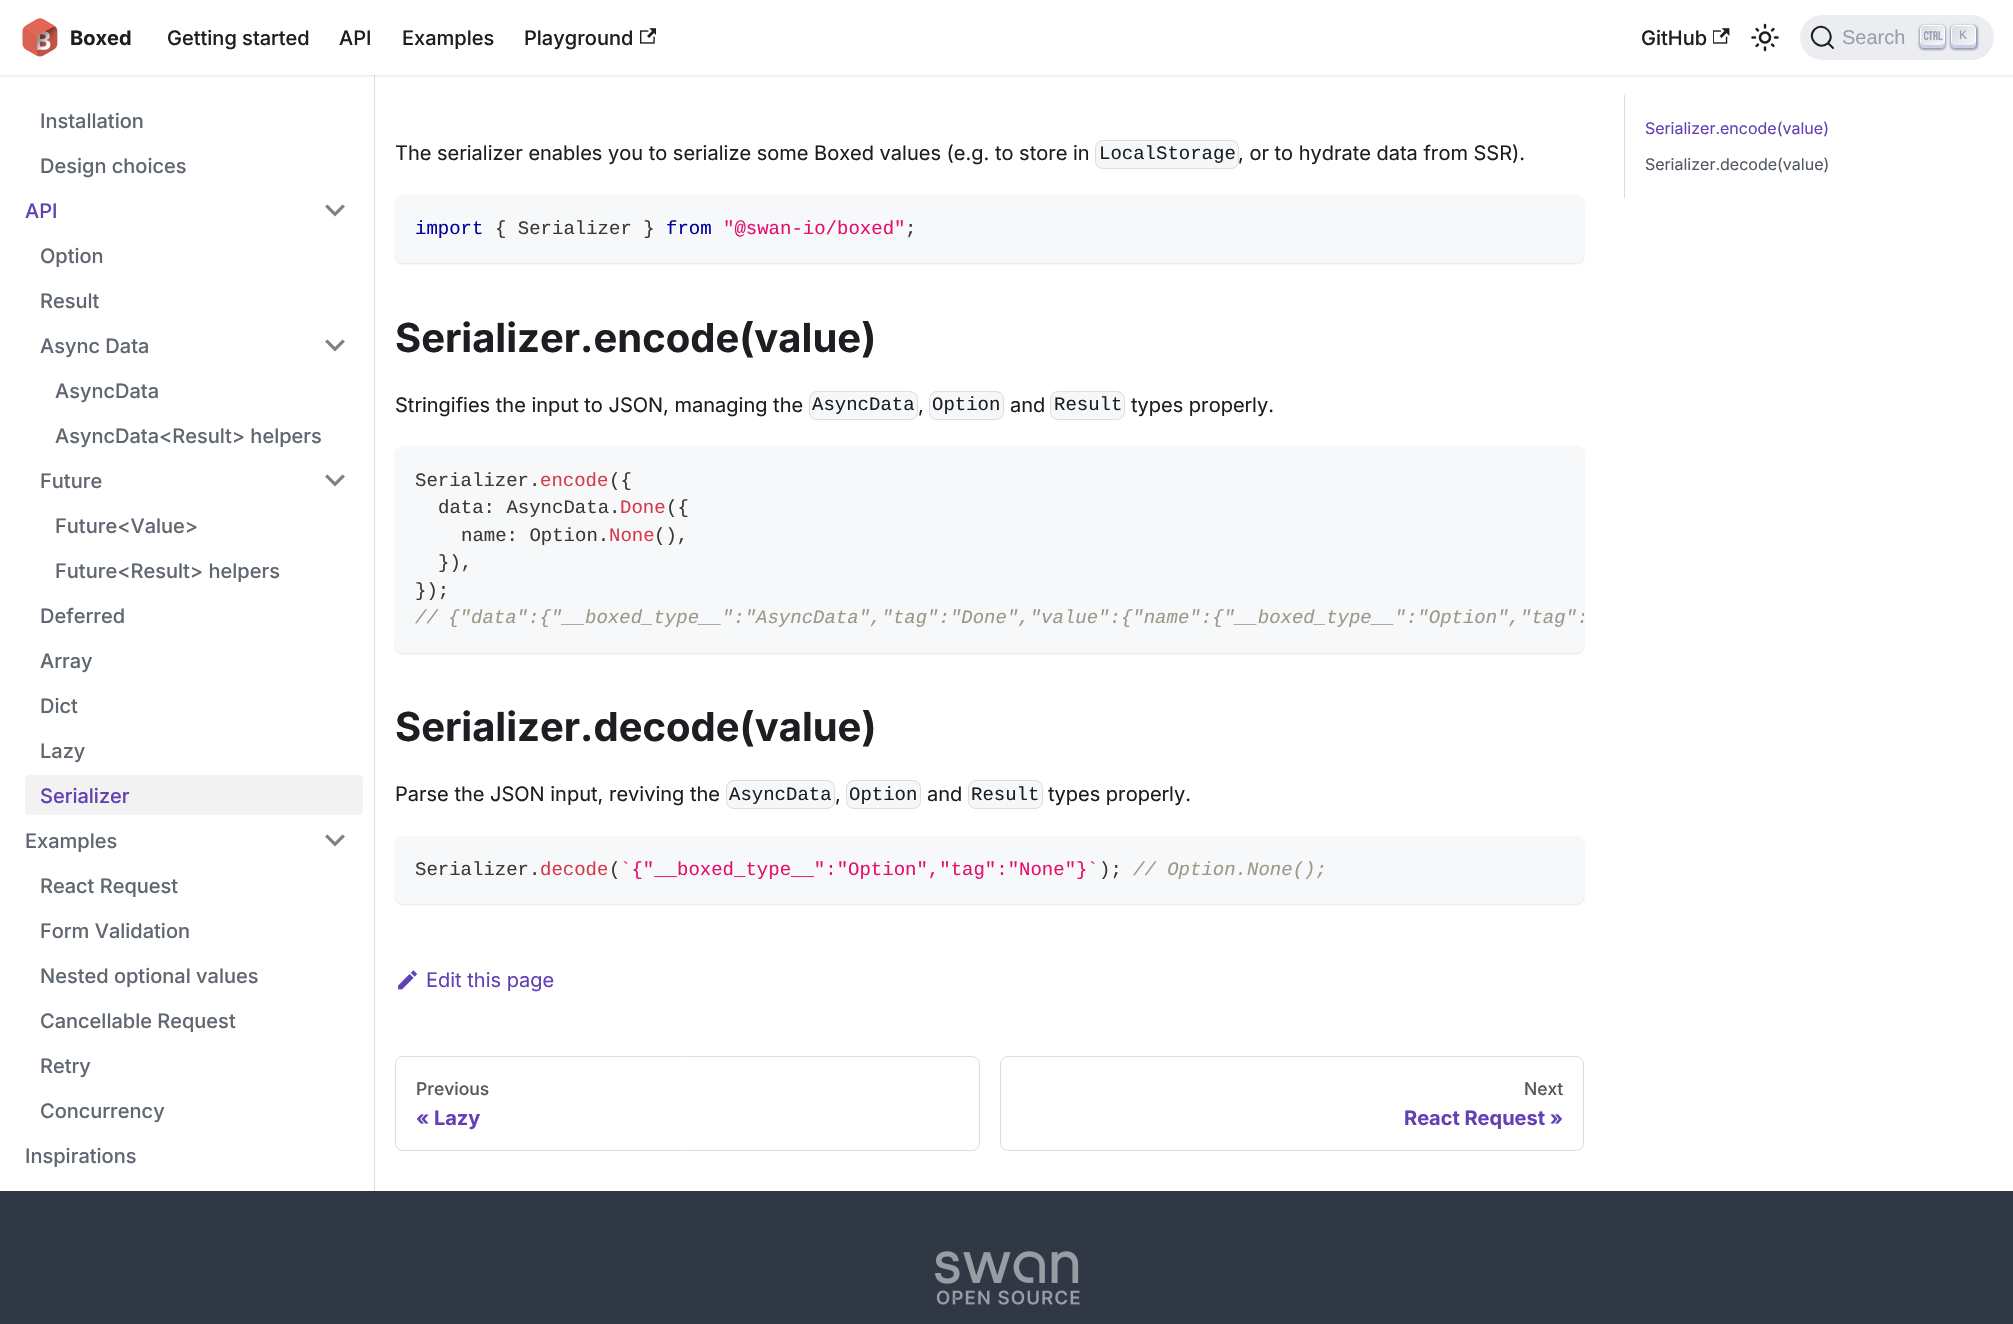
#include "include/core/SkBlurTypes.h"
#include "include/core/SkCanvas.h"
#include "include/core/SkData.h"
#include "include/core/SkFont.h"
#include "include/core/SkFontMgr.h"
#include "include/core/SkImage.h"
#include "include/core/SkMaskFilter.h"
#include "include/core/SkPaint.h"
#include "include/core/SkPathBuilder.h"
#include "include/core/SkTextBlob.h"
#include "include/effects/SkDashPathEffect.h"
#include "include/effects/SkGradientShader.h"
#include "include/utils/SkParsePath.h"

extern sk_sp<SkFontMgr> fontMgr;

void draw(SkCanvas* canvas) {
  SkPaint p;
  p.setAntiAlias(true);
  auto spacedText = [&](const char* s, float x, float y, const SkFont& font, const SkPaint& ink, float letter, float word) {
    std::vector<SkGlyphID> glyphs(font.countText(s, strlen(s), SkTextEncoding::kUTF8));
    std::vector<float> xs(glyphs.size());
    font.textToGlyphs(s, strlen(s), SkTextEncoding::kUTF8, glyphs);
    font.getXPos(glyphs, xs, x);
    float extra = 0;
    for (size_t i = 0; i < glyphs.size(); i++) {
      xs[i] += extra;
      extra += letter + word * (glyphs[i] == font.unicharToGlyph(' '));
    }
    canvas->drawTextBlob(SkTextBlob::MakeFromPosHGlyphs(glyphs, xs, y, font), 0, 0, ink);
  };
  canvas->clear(SK_ColorWHITE);
  p.setColor(SkColorSetRGB(218, 221, 225));
  canvas->drawRect(SkRect::MakeLTRB(374, 75, 375, 1191), p);
  p.setColor(SkColorSetARGB(26, 0, 0, 0));
  p.setMaskFilter(SkMaskFilter::MakeBlur(kNormal_SkBlurStyle, 1));
  canvas->drawRect(SkRect::MakeLTRB(0, 1, 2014, 76), p);
  p.setMaskFilter(nullptr);
  p.setColor(SK_ColorWHITE);
  canvas->drawRect(SkRect::MakeLTRB(0, 0, 2013, 75), p);
  canvas->drawImageRect(SkImages::DeferredFromEncodedData(SkData::MakeFromFileName("images/1.png")), SkRect::MakeLTRB(22, 18, 58, 57), SkSamplingOptions());
  canvas->drawImageRect(SkImages::DeferredFromEncodedData(SkData::MakeFromFileName("images/2.png")), SkRect::MakeLTRB(640, 28, 656, 44), SkSamplingOptions());
  canvas->drawImageRect(SkImages::DeferredFromEncodedData(SkData::MakeFromFileName("images/3.png")), SkRect::MakeLTRB(1713, 28, 1730, 44), SkSamplingOptions());
  canvas->drawImageRect(SkImages::DeferredFromEncodedData(SkData::MakeFromFileName("images/4.png")), SkRect::MakeLTRB(1751, 23, 1779, 52), SkSamplingOptions());
  p.setColor(SkColorSetRGB(235, 237, 240));
  canvas->drawRoundRect(SkRect::MakeLTRB(1800, 15, 1994, 60), 22.5f, 22.5f, p);
  p.setStyle(SkPaint::kStroke_Style);
  p.setStrokeWidth(2);
  p.setStrokeCap(SkPaint::kRound_Cap);
  p.setStrokeJoin(SkPaint::kRound_Join);
  p.setColor(SkColorSetRGB(28, 30, 33));
  canvas->drawPath(SkPathBuilder().moveTo(1828, 43).lineTo(1833, 48).lineTo(1828, 43).cubicTo(1819.5f, 51.5f, 1806, 38.5f, 1814.5f, 29.5f).cubicTo(1823.5f, 21, 1836.5f, 34.5f, 1828, 43).close().detach(), p);
  p.setStyle(SkPaint::kFill_Style);
  p.setColor(SkColorSetARGB(102, 30, 35, 90));
  p.setMaskFilter(SkMaskFilter::MakeBlur(kNormal_SkBlurStyle, 1));
  canvas->drawRoundRect(SkRect::MakeLTRB(1919, 25, 1946, 50), 5, 5, p);
  p.setMaskFilter(nullptr);
  {
    const SkColor colors[] = {SkColorSetRGB(213, 219, 228), SkColorSetRGB(248, 248, 248)};
    const float stops[] = {0, 1};
    const SkPoint ends[] = {{1921, 24}, {1944, 48}};
    p.setShader(SkGradientShader::MakeLinear(ends, colors, stops, 2, SkTileMode::kClamp));
    p.setAlpha(255);
  }
  canvas->drawRoundRect(SkRect::MakeLTRB(1920.5f, 25.5f, 1944.5f, 47.5f), 3.5f, 3.5f, p);
  p.setStyle(SkPaint::kStroke_Style);
  p.setStrokeWidth(1);
  p.setStrokeCap(SkPaint::kButt_Cap);
  p.setStrokeJoin(SkPaint::kMiter_Join);
  p.setShader(nullptr);
  p.setColor(SK_ColorWHITE);
  canvas->drawRoundRect(SkRect::MakeLTRB(1920.5f, 25.5f, 1944.5f, 47.5f), 3.5f, 3.5f, p);
  p.setStyle(SkPaint::kFill_Style);
  p.setColor(SkColorSetRGB(205, 205, 230));
  canvas->drawPath(SkPathBuilder().moveTo(1945, 41.5f).cubicTo(1944.5f, 44, 1943, 45, 1938, 45).lineTo(1924, 45).cubicTo(1921.5f, 45, 1920.5f, 43.5f, 1920, 42).cubicTo(1920, 47.5f, 1921.5f, 48, 1927, 48).lineTo(1938, 48).cubicTo(1944, 48, 1945, 47.5f, 1945, 41.5f).close().detach(), p);
  canvas->drawImageRect(SkImages::DeferredFromEncodedData(SkData::MakeFromFileName("images/5.png")), SkRect::MakeLTRB(1924, 31, 1943, 41), SkSamplingOptions());
  p.setColor(SkColorSetARGB(102, 30, 35, 90));
  p.setMaskFilter(SkMaskFilter::MakeBlur(kNormal_SkBlurStyle, 1));
  canvas->drawRoundRect(SkRect::MakeLTRB(1950, 25, 1978, 50), 5, 5, p);
  p.setMaskFilter(nullptr);
  {
    const SkColor colors[] = {SkColorSetRGB(213, 219, 228), SkColorSetRGB(248, 248, 248)};
    const float stops[] = {0, 1};
    const SkPoint ends[] = {{1952, 24}, {1976, 48}};
    p.setShader(SkGradientShader::MakeLinear(ends, colors, stops, 2, SkTileMode::kClamp));
    p.setAlpha(255);
  }
  canvas->drawRoundRect(SkRect::MakeLTRB(1951.5f, 25.5f, 1975.5f, 47.5f), 3.5f, 3.5f, p);
  p.setStyle(SkPaint::kStroke_Style);
  p.setShader(nullptr);
  p.setColor(SK_ColorWHITE);
  canvas->drawRoundRect(SkRect::MakeLTRB(1951.5f, 25.5f, 1975.5f, 47.5f), 3.5f, 3.5f, p);
  p.setStyle(SkPaint::kFill_Style);
  p.setColor(SkColorSetRGB(205, 205, 230));
  canvas->drawPath(SkPathBuilder().moveTo(1976, 42).cubicTo(1975.5f, 44, 1974, 45, 1970, 45).lineTo(1955, 45).cubicTo(1952, 45, 1951, 42.5f, 1951, 39.5f).lineTo(1951, 44).cubicTo(1951, 46, 1953, 48, 1955, 48).lineTo(1972, 48).cubicTo(1974, 48, 1976, 46, 1976, 44).close().detach(), p);
  p.setColor(SkColorSetRGB(128, 128, 128));
  canvas->drawPath(SkPathBuilder().moveTo(342.5f, 204.5f).lineTo(335, 212).lineTo(327.5f, 204.5f).lineTo(325, 206.5f).lineTo(335, 216.5f).lineTo(345, 206.5f).close().detach(), p);
  canvas->drawPath(SkPathBuilder().moveTo(342.5f, 339.5f).lineTo(335, 347).lineTo(327.5f, 339.5f).lineTo(325, 341.5f).lineTo(335, 351.5f).lineTo(345, 341.5f).close().detach(), p);
  canvas->drawPath(SkPathBuilder().moveTo(342.5f, 474.5f).lineTo(335, 482).lineTo(327.5f, 474.5f).lineTo(325, 476.5f).lineTo(335, 486.5f).lineTo(345, 476.5f).close().detach(), p);
  p.setColor(SkColorSetRGB(242, 242, 242));
  canvas->drawRoundRect(SkRect::MakeLTRB(25, 775, 363, 815), 5, 5, p);
  p.setColor(SkColorSetRGB(128, 128, 128));
  canvas->drawPath(SkPathBuilder().moveTo(342.5f, 834.5f).lineTo(335, 842).lineTo(327.5f, 834.5f).lineTo(325, 836.5f).lineTo(335, 846.5f).lineTo(345, 836.5f).close().detach(), p);
  p.setColor(SkColorSetRGB(246, 247, 248));
  canvas->drawRoundRect(SkRect::MakeLTRB(1095, 140, 1239, 169), 8, 8, p);
  p.setStyle(SkPaint::kStroke_Style);
  p.setColor(SkColorSetARGB(26, 0, 0, 0));
  canvas->drawRoundRect(SkRect::MakeLTRB(1095.5f, 140.5f, 1238.5f, 168.5f), 7.5f, 7.5f, p);
  p.setStyle(SkPaint::kFill_Style);
  p.setMaskFilter(SkMaskFilter::MakeBlur(kNormal_SkBlurStyle, 1));
  canvas->drawRoundRect(SkRect::MakeLTRB(395, 196, 1584, 264), 8, 8, p);
  p.setMaskFilter(nullptr);
  p.setColor(SkColorSetRGB(246, 248, 250));
  canvas->drawRoundRect(SkRect::MakeLTRB(395, 195, 1584, 263), 8, 8, p);
  p.setColor(SkColorSetRGB(246, 247, 248));
  canvas->drawRoundRect(SkRect::MakeLTRB(809, 391, 918, 420), 8, 8, p);
  p.setStyle(SkPaint::kStroke_Style);
  p.setColor(SkColorSetARGB(26, 0, 0, 0));
  canvas->drawRoundRect(SkRect::MakeLTRB(809.5f, 391.5f, 917.5f, 419.5f), 7.5f, 7.5f, p);
  p.setStyle(SkPaint::kFill_Style);
  p.setColor(SkColorSetRGB(246, 247, 248));
  canvas->drawRoundRect(SkRect::MakeLTRB(929, 391, 1004, 420), 8, 8, p);
  p.setStyle(SkPaint::kStroke_Style);
  p.setColor(SkColorSetARGB(26, 0, 0, 0));
  canvas->drawRoundRect(SkRect::MakeLTRB(929.5f, 391.5f, 1003.5f, 419.5f), 7.5f, 7.5f, p);
  p.setStyle(SkPaint::kFill_Style);
  p.setColor(SkColorSetRGB(246, 247, 248));
  canvas->drawRoundRect(SkRect::MakeLTRB(1050, 391, 1125, 420), 8, 8, p);
  p.setStyle(SkPaint::kStroke_Style);
  p.setColor(SkColorSetARGB(26, 0, 0, 0));
  canvas->drawRoundRect(SkRect::MakeLTRB(1050.5f, 391.5f, 1124.5f, 419.5f), 7.5f, 7.5f, p);
  p.setStyle(SkPaint::kFill_Style);
  p.setMaskFilter(SkMaskFilter::MakeBlur(kNormal_SkBlurStyle, 1));
  canvas->drawRoundRect(SkRect::MakeLTRB(395, 448, 1584, 654), 8, 8, p);
  p.setMaskFilter(nullptr);
  p.setColor(SkColorSetRGB(246, 248, 250));
  canvas->drawRoundRect(SkRect::MakeLTRB(395, 446, 1584, 653), 8, 8, p);
  p.setColor(SkColorSetRGB(246, 247, 248));
  canvas->drawRoundRect(SkRect::MakeLTRB(726, 780, 835, 809), 8, 8, p);
  p.setStyle(SkPaint::kStroke_Style);
  p.setColor(SkColorSetARGB(26, 0, 0, 0));
  canvas->drawRoundRect(SkRect::MakeLTRB(726.5f, 780.5f, 834.5f, 808.5f), 7.5f, 7.5f, p);
  p.setStyle(SkPaint::kFill_Style);
  p.setColor(SkColorSetRGB(246, 247, 248));
  canvas->drawRoundRect(SkRect::MakeLTRB(846, 780, 921, 809), 8, 8, p);
  p.setStyle(SkPaint::kStroke_Style);
  p.setColor(SkColorSetARGB(26, 0, 0, 0));
  canvas->drawRoundRect(SkRect::MakeLTRB(846.5f, 780.5f, 920.5f, 808.5f), 7.5f, 7.5f, p);
  p.setStyle(SkPaint::kFill_Style);
  p.setColor(SkColorSetRGB(246, 247, 248));
  canvas->drawRoundRect(SkRect::MakeLTRB(968, 780, 1043, 809), 8, 8, p);
  p.setStyle(SkPaint::kStroke_Style);
  p.setColor(SkColorSetARGB(26, 0, 0, 0));
  canvas->drawRoundRect(SkRect::MakeLTRB(968.5f, 780.5f, 1042.5f, 808.5f), 7.5f, 7.5f, p);
  p.setStyle(SkPaint::kFill_Style);
  p.setMaskFilter(SkMaskFilter::MakeBlur(kNormal_SkBlurStyle, 1));
  canvas->drawRoundRect(SkRect::MakeLTRB(395, 838, 1584, 905), 8, 8, p);
  p.setMaskFilter(nullptr);
  p.setColor(SkColorSetRGB(246, 248, 250));
  canvas->drawRoundRect(SkRect::MakeLTRB(395, 836, 1584, 904), 8, 8, p);
  canvas->drawImageRect(SkImages::DeferredFromEncodedData(SkData::MakeFromFileName("images/6.png")), SkRect::MakeLTRB(398, 970, 417, 990), SkSamplingOptions());
  p.setStyle(SkPaint::kStroke_Style);
  p.setColor(SkColorSetRGB(218, 221, 225));
  canvas->drawRoundRect(SkRect::MakeLTRB(395.5f, 1056.5f, 979.5f, 1150.5f), 7.5f, 7.5f, p);
  canvas->drawRoundRect(SkRect::MakeLTRB(1000.5f, 1056.5f, 1583.5f, 1150.5f), 7.5f, 7.5f, p);
  p.setStyle(SkPaint::kFill_Style);
  canvas->drawRect(SkRect::MakeLTRB(1624, 95, 1625, 198), p);
  p.setColor(SkColorSetRGB(48, 56, 70));
  canvas->drawRect(SkRect::MakeLTRB(0, 1191, 2013, 1324), p);
  canvas->drawImageRect(SkImages::DeferredFromEncodedData(SkData::MakeFromFileName("images/7.png")), SkRect::MakeLTRB(935, 1251, 1080, 1305), SkSamplingOptions());
  SkFont font1(fontMgr->matchFamilyStyle("Inter", SkFontStyle::Bold()), 20);
  font1.setSubpixel(true);
  p.setColor(SkColorSetRGB(28, 30, 33));
  canvas->drawString("Boxed", 70, 45, font1, p);
  SkFont font2(fontMgr->matchFamilyStyle("Inter", SkFontStyle(500, SkFontStyle::kNormal_Width, SkFontStyle::kUpright_Slant)), 20);
  font2.setSubpixel(true);
  canvas->drawString("Getting started", 167, 45, font2, p);
  canvas->drawString("API", 339, 45, font2, p);
  canvas->drawString("Examples", 402, 45, font2, p);
  canvas->drawString("Playground", 524, 45, font2, p);
  canvas->drawString("GitHub", 1641, 45, font2, p);
  SkFont font3(fontMgr->matchFamilyStyle("Liberation Sans", SkFontStyle::Normal()), 20);
  font3.setSubpixel(true);
  p.setColor(SkColorSetRGB(150, 159, 175));
  canvas->drawString("Search", 1842, 44, font3, p);
  SkFont font4(fontMgr->matchFamilyStyle("Liberation Mono", SkFontStyle::Normal()), 13);
  font4.setSubpixel(true);
  canvas->drawString("K", 1959, 39, font4, p);
  p.setColor(SkColorSetRGB(96, 103, 112));
  canvas->drawString("Installation", 40, 128, font2, p);
  canvas->drawString("Design choices", 40, 173, font2, p);
  p.setColor(SkColorSetRGB(98, 64, 181));
  canvas->drawString("API", 25, 218, font2, p);
  p.setColor(SkColorSetRGB(96, 103, 112));
  canvas->drawString("Option", 40, 263, font2, p);
  canvas->drawString("Result", 40, 308, font2, p);
  canvas->drawString("Async Data", 40, 353, font2, p);
  canvas->drawString("AsyncData", 55, 398, font2, p);
  canvas->drawString("AsyncData<Result> helpers", 55, 443, font2, p);
  canvas->drawString("Future", 40, 488, font2, p);
  canvas->drawString("Future<Value>", 55, 533, font2, p);
  canvas->drawString("Future<Result> helpers", 55, 578, font2, p);
  canvas->drawString("Deferred", 40, 623, font2, p);
  canvas->drawString("Array", 40, 668, font2, p);
  canvas->drawString("Dict", 40, 713, font2, p);
  canvas->drawString("Lazy", 40, 758, font2, p);
  p.setColor(SkColorSetRGB(98, 64, 181));
  canvas->drawString("Serializer", 40, 803, font2, p);
  p.setColor(SkColorSetRGB(96, 103, 112));
  canvas->drawString("Examples", 25, 848, font2, p);
  canvas->drawString("React Request", 40, 893, font2, p);
  canvas->drawString("Form Validation", 40, 938, font2, p);
  canvas->drawString("Nested optional values", 40, 983, font2, p);
  canvas->drawString("Cancellable Request", 40, 1028, font2, p);
  canvas->drawString("Retry", 40, 1073, font2, p);
  canvas->drawString("Concurrency", 40, 1118, font2, p);
  canvas->drawString("Inspirations", 25, 1163, font2, p);
  SkFont font5(fontMgr->matchFamilyStyle("Inter", SkFontStyle::Normal()), 20);
  font5.setSubpixel(true);
  p.setColor(SkColorSetRGB(28, 30, 33));
  canvas->drawString("The serializer enables you to serialize some Boxed values (e.g. to store in", 395, 160, font5, p);
  SkFont font6(fontMgr->matchFamilyStyle("Liberation Mono", SkFontStyle::Normal()), 19);
  font6.setSubpixel(true);
  canvas->drawString("LocalStorage", 1099, 159, font6, p);
  canvas->drawString(", or to hydrate data from SSR).", 1238, 160, font5, p);
  p.setColor(SkColorSetRGB(0, 0, 159));
  canvas->drawString("import", 415, 234, font6, p);
  p.setColor(SkColorSetRGB(57, 58, 52));
  canvas->drawString("{ Serializer }", 495, 234, font6, p);
  p.setColor(SkColorSetRGB(0, 0, 159));
  canvas->drawString("from", 666, 234, font6, p);
  p.setColor(SkColorSetRGB(227, 17, 108));
  canvas->drawString("\"@swan-io/boxed\"", 723, 234, font6, p);
  p.setColor(SkColorSetRGB(57, 58, 52));
  canvas->drawString(";", 905, 234, font6, p);
  SkFont font7(fontMgr->matchFamilyStyle("Inter", SkFontStyle::Bold()), 40);
  font7.setSubpixel(true);
  p.setColor(SkColorSetRGB(28, 30, 33));
  canvas->drawString("Serializer.encode(value)", 395, 352, font7, p);
  canvas->drawString("Stringifies the input to JSON, managing the", 395, 412, font5, p);
  canvas->drawString("AsyncData", 812, 410, font6, p);
  canvas->drawString(",", 918, 412, font5, p);
  canvas->drawString("Option", 932, 410, font6, p);
  canvas->drawString("and", 1010, 412, font5, p);
  canvas->drawString("Result", 1054, 410, font6, p);
  canvas->drawString("types properly.", 1131, 412, font5, p);
  p.setColor(SkColorSetRGB(57, 58, 52));
  canvas->drawString("Serializer.", 415, 486, font6, p);
  p.setColor(SkColorSetRGB(215, 58, 73));
  canvas->drawString("encode", 540, 486, font6, p);
  p.setColor(SkColorSetRGB(57, 58, 52));
  canvas->drawString("({", 609, 486, font6, p);
  canvas->drawString("data: AsyncData.", 438, 513, font6, p);
  p.setColor(SkColorSetRGB(215, 58, 73));
  canvas->drawString("Done", 620, 513, font6, p);
  p.setColor(SkColorSetRGB(57, 58, 52));
  canvas->drawString("({", 666, 513, font6, p);
  canvas->drawString("name: Option.", 461, 541, font6, p);
  p.setColor(SkColorSetRGB(215, 58, 73));
  canvas->drawString("None", 609, 541, font6, p);
  p.setColor(SkColorSetRGB(57, 58, 52));
  canvas->drawString("(),", 654, 541, font6, p);
  canvas->drawString("}),", 438, 568, font6, p);
  canvas->drawString("});", 415, 596, font6, p);
  canvas->save();
  canvas->clipPath(SkPathBuilder().moveTo(403, 446).lineTo(1576, 446).cubicTo(1580.5f, 446, 1584, 449.5f, 1584, 454).lineTo(1584, 645).cubicTo(1584, 649.5f, 1580.5f, 653, 1576, 653).lineTo(403, 653).cubicTo(398.5f, 653, 395, 649.5f, 395, 645).lineTo(395, 454).cubicTo(395, 449.5f, 398.5f, 446, 403, 446).close().detach(), true);
  SkFont font8(fontMgr->matchFamilyStyle("Liberation Mono", SkFontStyle::Italic()), 19);
  font8.setSubpixel(true);
  p.setColor(SkColorSetRGB(153, 153, 136));
  spacedText("// {\"data\":{\"__boxed_type__\":\"AsyncData\",\"tag\":\"Done\",\"value\":{\"name\":{\"__boxed_type__\":\"Option\",\"tag\":", 415, 623, font8, p, 0, -1);
  canvas->restore();
  p.setColor(SkColorSetRGB(28, 30, 33));
  canvas->drawString("Serializer.decode(value)", 395, 741, font7, p);
  canvas->drawString("Parse the JSON input, reviving the", 395, 801, font5, p);
  canvas->drawString("AsyncData", 729, 800, font6, p);
  canvas->drawString(",", 835, 801, font5, p);
  canvas->drawString("Option", 849, 800, font6, p);
  canvas->drawString("and", 927, 801, font5, p);
  canvas->drawString("Result", 971, 800, font6, p);
  canvas->drawString("types properly.", 1048, 801, font5, p);
  p.setColor(SkColorSetRGB(57, 58, 52));
  canvas->drawString("Serializer.", 415, 875, font6, p);
  p.setColor(SkColorSetRGB(215, 58, 73));
  canvas->drawString("decode", 540, 875, font6, p);
  p.setColor(SkColorSetRGB(57, 58, 52));
  canvas->drawString("(", 609, 875, font6, p);
  p.setColor(SkColorSetRGB(227, 17, 108));
  canvas->drawString("`{\"__boxed_type__\":\"Option\",\"tag\":\"None\"}", 620, 875, font6, p);
  canvas->drawString("`", 1087, 875, font6, p);
  p.setColor(SkColorSetRGB(57, 58, 52));
  canvas->drawString(");", 1099, 875, font6, p);
  p.setColor(SkColorSetRGB(153, 153, 136));
  canvas->drawString("// Option.None();", 1133, 875, font8, p);
  p.setColor(SkColorSetRGB(98, 64, 181));
  canvas->drawString("Edit this page", 426, 987, font5, p);
  SkFont font9(fontMgr->matchFamilyStyle("Inter", SkFontStyle(500, SkFontStyle::kNormal_Width, SkFontStyle::kUpright_Slant)), 17.5f);
  font9.setSubpixel(true);
  p.setColor(SkColorSetRGB(82, 88, 96));
  canvas->drawString("Previous", 416, 1095, font9, p);
  p.setColor(SkColorSetRGB(98, 64, 181));
  canvas->drawString("« Lazy", 416, 1125, font1, p);
  p.setColor(SkColorSetRGB(82, 88, 96));
  canvas->drawString("Next", 1524, 1095, font9, p);
  p.setColor(SkColorSetRGB(98, 64, 181));
  canvas->drawString("React Request »", 1404, 1125, font1, p);
  SkFont font10(fontMgr->matchFamilyStyle("Inter", SkFontStyle::Normal()), 16);
  font10.setSubpixel(true);
  canvas->drawString("Serializer.encode(value)", 1645, 134, font10, p);
  p.setColor(SkColorSetRGB(82, 88, 96));
  canvas->drawString("Serializer.decode(value)", 1645, 170, font10, p);
}
